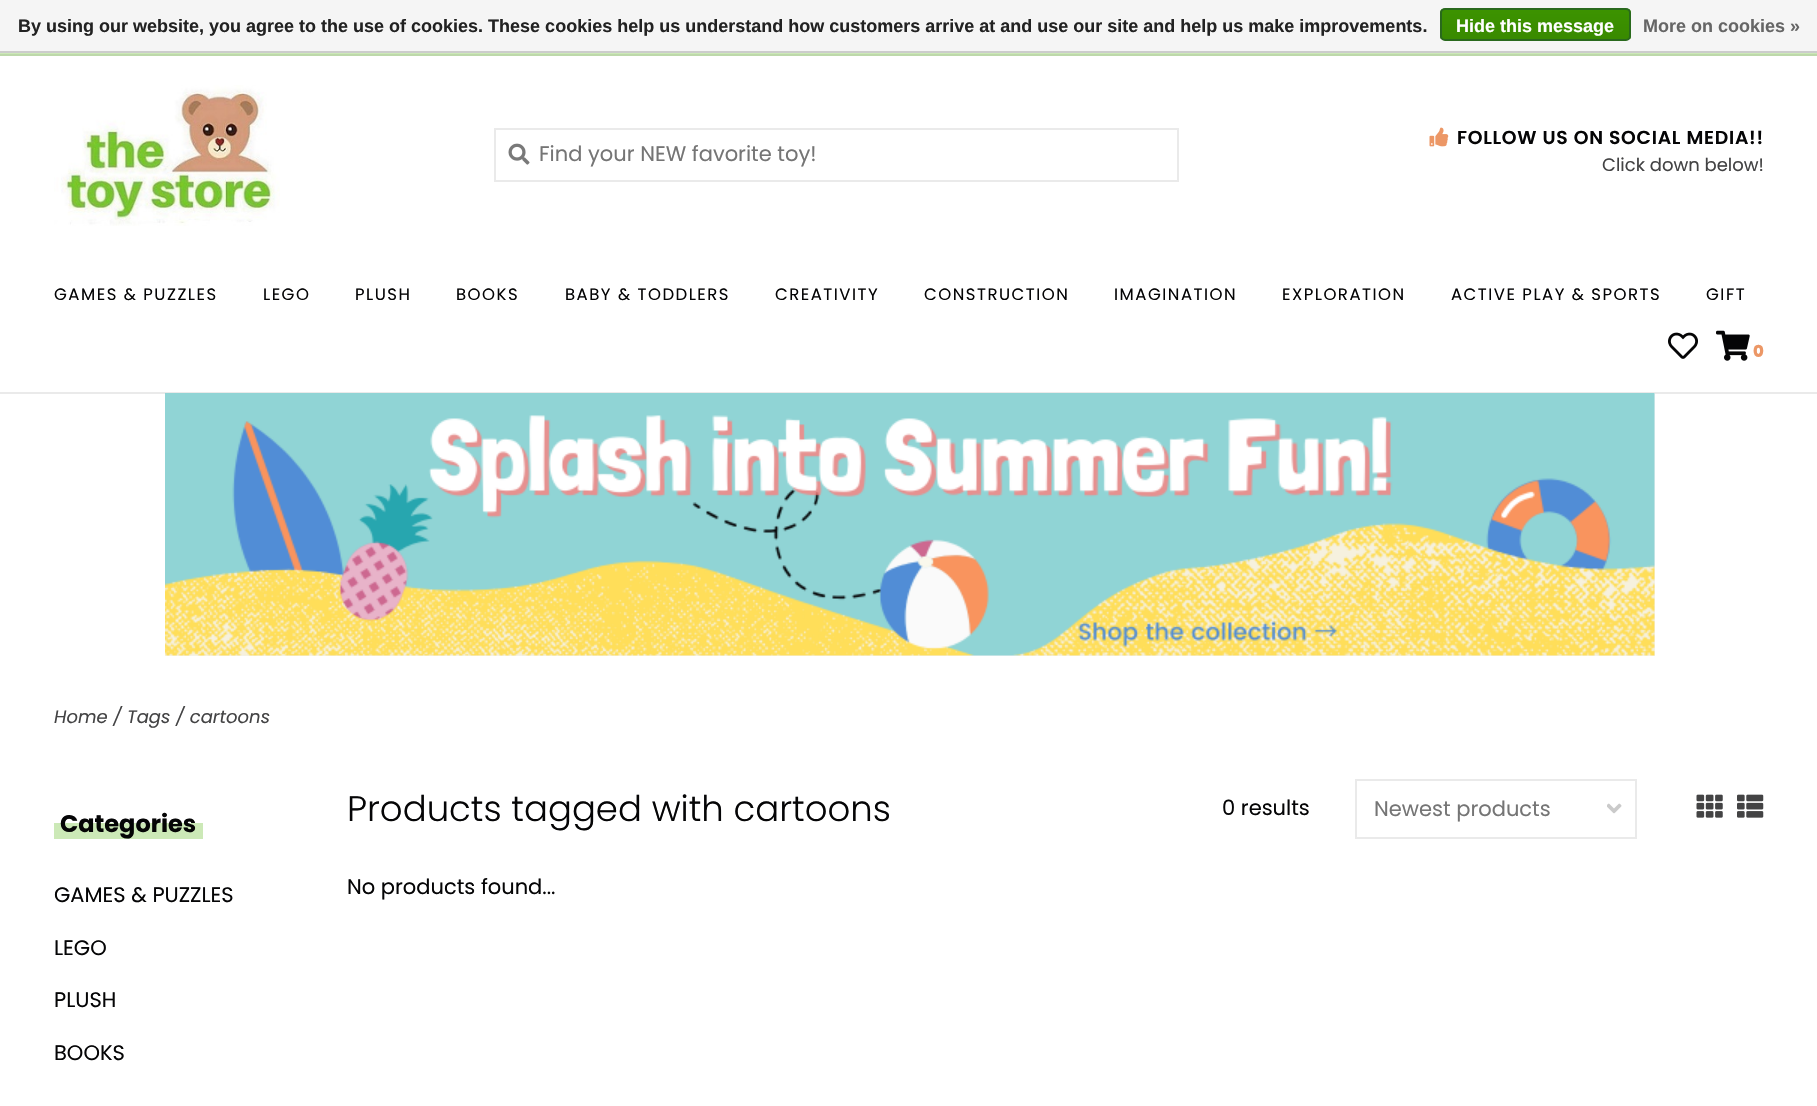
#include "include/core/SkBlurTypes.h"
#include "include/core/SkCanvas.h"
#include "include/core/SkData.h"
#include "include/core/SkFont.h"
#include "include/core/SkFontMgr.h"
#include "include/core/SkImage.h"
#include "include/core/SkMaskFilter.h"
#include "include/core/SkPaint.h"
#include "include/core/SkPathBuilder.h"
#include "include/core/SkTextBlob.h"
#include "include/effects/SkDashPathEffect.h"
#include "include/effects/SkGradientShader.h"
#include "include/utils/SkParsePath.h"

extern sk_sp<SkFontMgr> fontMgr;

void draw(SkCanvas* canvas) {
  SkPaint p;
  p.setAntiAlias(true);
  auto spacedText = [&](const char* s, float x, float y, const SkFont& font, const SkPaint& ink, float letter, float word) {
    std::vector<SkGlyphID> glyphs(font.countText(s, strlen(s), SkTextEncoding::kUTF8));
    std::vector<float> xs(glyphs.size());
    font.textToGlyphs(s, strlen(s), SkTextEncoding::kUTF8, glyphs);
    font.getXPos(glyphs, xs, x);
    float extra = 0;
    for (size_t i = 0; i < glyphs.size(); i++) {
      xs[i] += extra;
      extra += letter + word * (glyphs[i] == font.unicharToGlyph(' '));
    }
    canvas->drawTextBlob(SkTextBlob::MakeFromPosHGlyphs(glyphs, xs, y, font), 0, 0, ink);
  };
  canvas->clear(SK_ColorWHITE);
  p.setColor(SkColorSetRGB(245, 245, 245));
  canvas->drawRect(SkRect::MakeLTRB(0, 0, 1817, 51), p);
  p.setColor(SkColorSetRGB(204, 204, 204));
  canvas->drawRect(SkRect::MakeLTRB(0, 51, 1817, 53), p);
  canvas->save();
  canvas->clipPath(SkPathBuilder().moveTo(1445, 8).lineTo(1626, 8).cubicTo(1629, 8, 1631, 10, 1631, 13).lineTo(1631, 36).cubicTo(1631, 39, 1629, 41, 1626, 41).lineTo(1445, 41).cubicTo(1442, 41, 1440, 39, 1440, 36).lineTo(1440, 13).cubicTo(1440, 10, 1442, 8, 1445, 8).close().detach(), true);
  {
    const SkColor colors[] = {SkColorSetRGB(60, 147, 0), SkColorSetRGB(57, 138, 0)};
    const float stops[] = {0, 1};
    const SkPoint ends[] = {{1535, 9}, {1535, 39}};
    p.setShader(SkGradientShader::MakeLinear(ends, colors, stops, 2, SkTileMode::kClamp));
    p.setAlpha(255);
  }
  canvas->drawRect(SkRect::MakeLTRB(1440, 9, 1631, 39), p);
  canvas->restore();
  p.setStyle(SkPaint::kStroke_Style);
  p.setStrokeWidth(2);
  p.setShader(nullptr);
  p.setColor(SkColorSetRGB(41, 105, 29));
  canvas->drawRoundRect(SkRect::MakeLTRB(1441, 9, 1630, 40), 4, 4, p);
  p.setStyle(SkPaint::kFill_Style);
  p.setColor(SkColorSetRGB(234, 234, 234));
  canvas->drawRect(SkRect::MakeLTRB(0, 392, 1817, 394), p);
  p.setColor(SkColorSetRGB(204, 233, 183));
  canvas->drawRect(SkRect::MakeLTRB(0, 53, 1817, 54), p);
  p.setColor(SkColorSetRGB(189, 216, 170));
  canvas->drawRect(SkRect::MakeLTRB(0, 54, 1817, 56), p);
  canvas->drawImageRect(SkImages::DeferredFromEncodedData(SkData::MakeFromFileName("images/1.png")), SkRect::MakeLTRB(54, 85, 280, 226), SkSamplingOptions());
  p.setStyle(SkPaint::kStroke_Style);
  p.setColor(SkColorSetRGB(234, 234, 234));
  canvas->drawRect(SkRect::MakeLTRB(495, 129, 1178, 181), p);
  canvas->drawImageRect(SkImages::DeferredFromEncodedData(SkData::MakeFromFileName("images/2.png")), SkRect::MakeLTRB(508, 143, 530, 165), SkSamplingOptions());
  canvas->drawImageRect(SkImages::DeferredFromEncodedData(SkData::MakeFromFileName("images/3.png")), SkRect::MakeLTRB(1429, 127, 1449, 147), SkSamplingOptions());
  canvas->drawImageRect(SkImages::DeferredFromEncodedData(SkData::MakeFromFileName("images/4.png")), SkRect::MakeLTRB(1668, 332, 1698, 359), SkSamplingOptions());
  canvas->drawImageRect(SkImages::DeferredFromEncodedData(SkData::MakeFromFileName("images/5.png")), SkRect::MakeLTRB(1716, 330, 1750, 361), SkSamplingOptions());
  p.setStyle(SkPaint::kFill_Style);
  p.setColor(SkColorSetRGB(242, 242, 242));
  canvas->drawRect(SkRect::MakeLTRB(165, 393, 1655, 656), p);
  canvas->drawImageRect(SkImages::DeferredFromEncodedData(SkData::MakeFromFileName("images/6.png")), SkRect::MakeLTRB(165, 393, 1655, 656), SkSamplingOptions());
  p.setColor(SkColorSetRGB(204, 233, 183));
  canvas->drawRect(SkRect::MakeLTRB(54, 823, 203, 839), p);
  canvas->drawImageRect(SkImages::DeferredFromEncodedData(SkData::MakeFromFileName("images/7.png")), SkRect::MakeLTRB(1607, 803, 1622, 814), SkSamplingOptions());
  p.setStyle(SkPaint::kStroke_Style);
  p.setColor(SkColorSetRGB(234, 234, 234));
  canvas->drawRect(SkRect::MakeLTRB(1356, 780, 1636, 838), p);
  canvas->drawImageRect(SkImages::DeferredFromEncodedData(SkData::MakeFromFileName("images/8.png")), SkRect::MakeLTRB(1696, 794, 1723, 818), SkSamplingOptions());
  canvas->drawImageRect(SkImages::DeferredFromEncodedData(SkData::MakeFromFileName("images/9.png")), SkRect::MakeLTRB(1737, 794, 1764, 818), SkSamplingOptions());
  SkFont font1(fontMgr->matchFamilyStyle("Liberation Sans", SkFontStyle::Bold()), 18);
  font1.setSubpixel(true);
  p.setStyle(SkPaint::kFill_Style);
  p.setColor(SkColorSetRGB(34, 34, 34));
  canvas->drawString("By using our website, you agree to the use of cookies. These cookies help us understand how customers arrive at and use our site and help us make improvements.", 18, 32, font1, p);
  p.setColor(SK_ColorWHITE);
  canvas->drawString("Hide this message", 1456, 32, font1, p);
  p.setColor(SkColorSetRGB(102, 102, 102));
  canvas->drawString("More on cookies »", 1643, 32, font1, p);
  SkFont font2(fontMgr->matchFamilyStyle("Poppins", SkFontStyle::Normal()), 21);
  font2.setSubpixel(true);
  p.setColor(SkColorSetRGB(117, 117, 117));
  canvas->drawString("Find your NEW favorite toy!", 539, 161, font2, p);
  SkFont font3(fontMgr->matchFamilyStyle("Poppins", SkFontStyle(600, SkFontStyle::kNormal_Width, SkFontStyle::kUpright_Slant)), 18.75f);
  font3.setSubpixel(true);
  p.setColor(SkColorSetRGB(5, 5, 6));
  spacedText("FOLLOW US ON SOCIAL MEDIA!!", 1457, 144, font3, p, 0.75f, 0);
  SkFont font4(fontMgr->matchFamilyStyle("Poppins", SkFontStyle::Normal()), 18);
  font4.setSubpixel(true);
  p.setColor(SkColorSetRGB(67, 67, 68));
  canvas->drawString("Click down below!", 1602, 171, font4, p);
  SkFont font5(fontMgr->matchFamilyStyle("Poppins", SkFontStyle::Normal()), 16.5f);
  font5.setSubpixel(true);
  p.setColor(SkColorSetRGB(5, 5, 6));
  spacedText("GAMES & PUZZLES", 54, 300, font5, p, 1.5f, 0);
  spacedText("LEGO", 263, 300, font5, p, 1.5f, 0);
  spacedText("PLUSH", 355, 300, font5, p, 1.5f, 0);
  spacedText("BOOKS", 456, 300, font5, p, 1.5f, 0);
  spacedText("BABY & TODDLERS", 565, 300, font5, p, 1.5f, 0);
  spacedText("CREATIVITY", 775, 300, font5, p, 1.5f, 0);
  spacedText("CONSTRUCTION", 924, 300, font5, p, 1.5f, 0);
  spacedText("IMAGINATION", 1114, 300, font5, p, 1.5f, 0);
  spacedText("EXPLORATION", 1282, 300, font5, p, 1.5f, 0);
  spacedText("ACTIVE PLAY & SPORTS", 1451, 300, font5, p, 1.5f, 0);
  spacedText("GIFT", 1706, 300, font5, p, 1.5f, 0);
  SkFont font6(fontMgr->matchFamilyStyle("Poppins", SkFontStyle(800, SkFontStyle::kNormal_Width, SkFontStyle::kUpright_Slant)), 16.5f);
  font6.setSubpixel(true);
  p.setColor(SkColorSetRGB(236, 151, 102));
  canvas->drawString("0", 1753, 357, font6, p);
  SkFont font7(fontMgr->matchFamilyStyle("Poppins", SkFontStyle::Italic()), 18);
  font7.setSubpixel(true);
  p.setColor(SkColorSetRGB(67, 67, 68));
  canvas->drawString("Home / Tags / cartoons", 54, 723, font7, p);
  SkFont font8(fontMgr->matchFamilyStyle("Poppins", SkFontStyle::Bold()), 24);
  font8.setSubpixel(true);
  p.setColor(SkColorSetRGB(5, 5, 6));
  canvas->drawString("Categories", 60, 832, font8, p);
  canvas->drawString("GAMES & PUZZLES", 54, 902, font2, p);
  canvas->drawString("LEGO", 54, 955, font2, p);
  canvas->drawString("PLUSH", 54, 1007, font2, p);
  canvas->drawString("BOOKS", 54, 1060, font2, p);
  SkFont font9(fontMgr->matchFamilyStyle("Poppins", SkFontStyle(300, SkFontStyle::kNormal_Width, SkFontStyle::kUpright_Slant)), 35.5f);
  font9.setSubpixel(true);
  canvas->drawString("Products tagged with cartoons", 347, 821, font9, p);
  canvas->drawString("0 results", 1222, 815, font2, p);
  p.setColor(SkColorSetRGB(117, 117, 117));
  canvas->drawString("Newest products", 1374, 816, font2, p);
  p.setColor(SkColorSetRGB(5, 5, 6));
  canvas->drawString("No products found...", 347, 894, font2, p);
}
